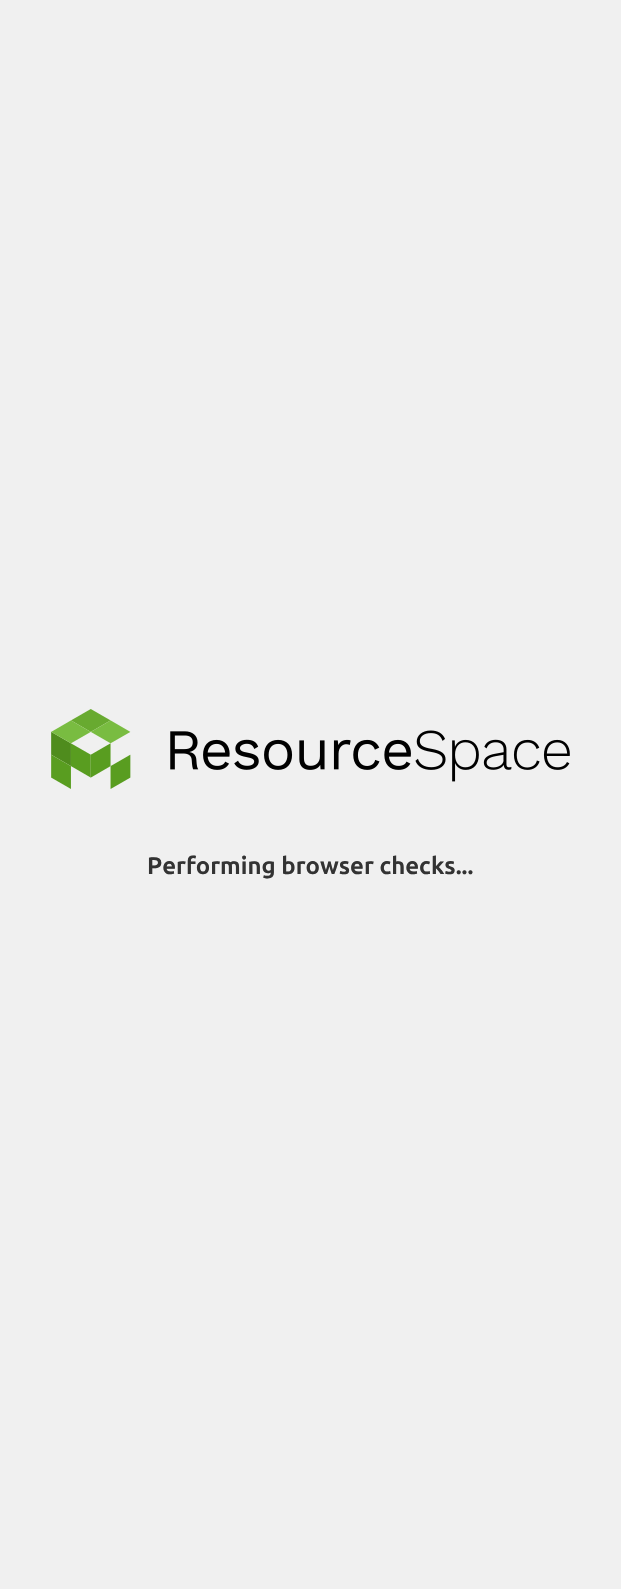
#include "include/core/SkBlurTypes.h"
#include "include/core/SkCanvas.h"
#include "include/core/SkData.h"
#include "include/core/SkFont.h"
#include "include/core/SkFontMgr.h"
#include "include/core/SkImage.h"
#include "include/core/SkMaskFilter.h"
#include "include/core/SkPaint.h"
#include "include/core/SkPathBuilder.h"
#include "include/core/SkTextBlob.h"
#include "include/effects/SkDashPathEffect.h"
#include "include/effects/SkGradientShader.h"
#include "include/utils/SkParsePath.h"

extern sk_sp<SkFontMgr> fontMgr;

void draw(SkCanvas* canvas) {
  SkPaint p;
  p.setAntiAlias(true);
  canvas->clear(SkColorSetRGB(240, 240, 240));
  canvas->drawImageRect(SkImages::DeferredFromEncodedData(SkData::MakeFromFileName("images/1.png")), SkRect::MakeLTRB(51, 709, 570, 789), SkSamplingOptions());
  SkFont font1(fontMgr->matchFamilyStyle("Ubuntu", SkFontStyle::Bold()), 24);
  font1.setSubpixel(true);
  p.setColor(SkColorSetRGB(51, 51, 51));
  canvas->drawString("Performing browser checks...", 147, 874, font1, p);
}
